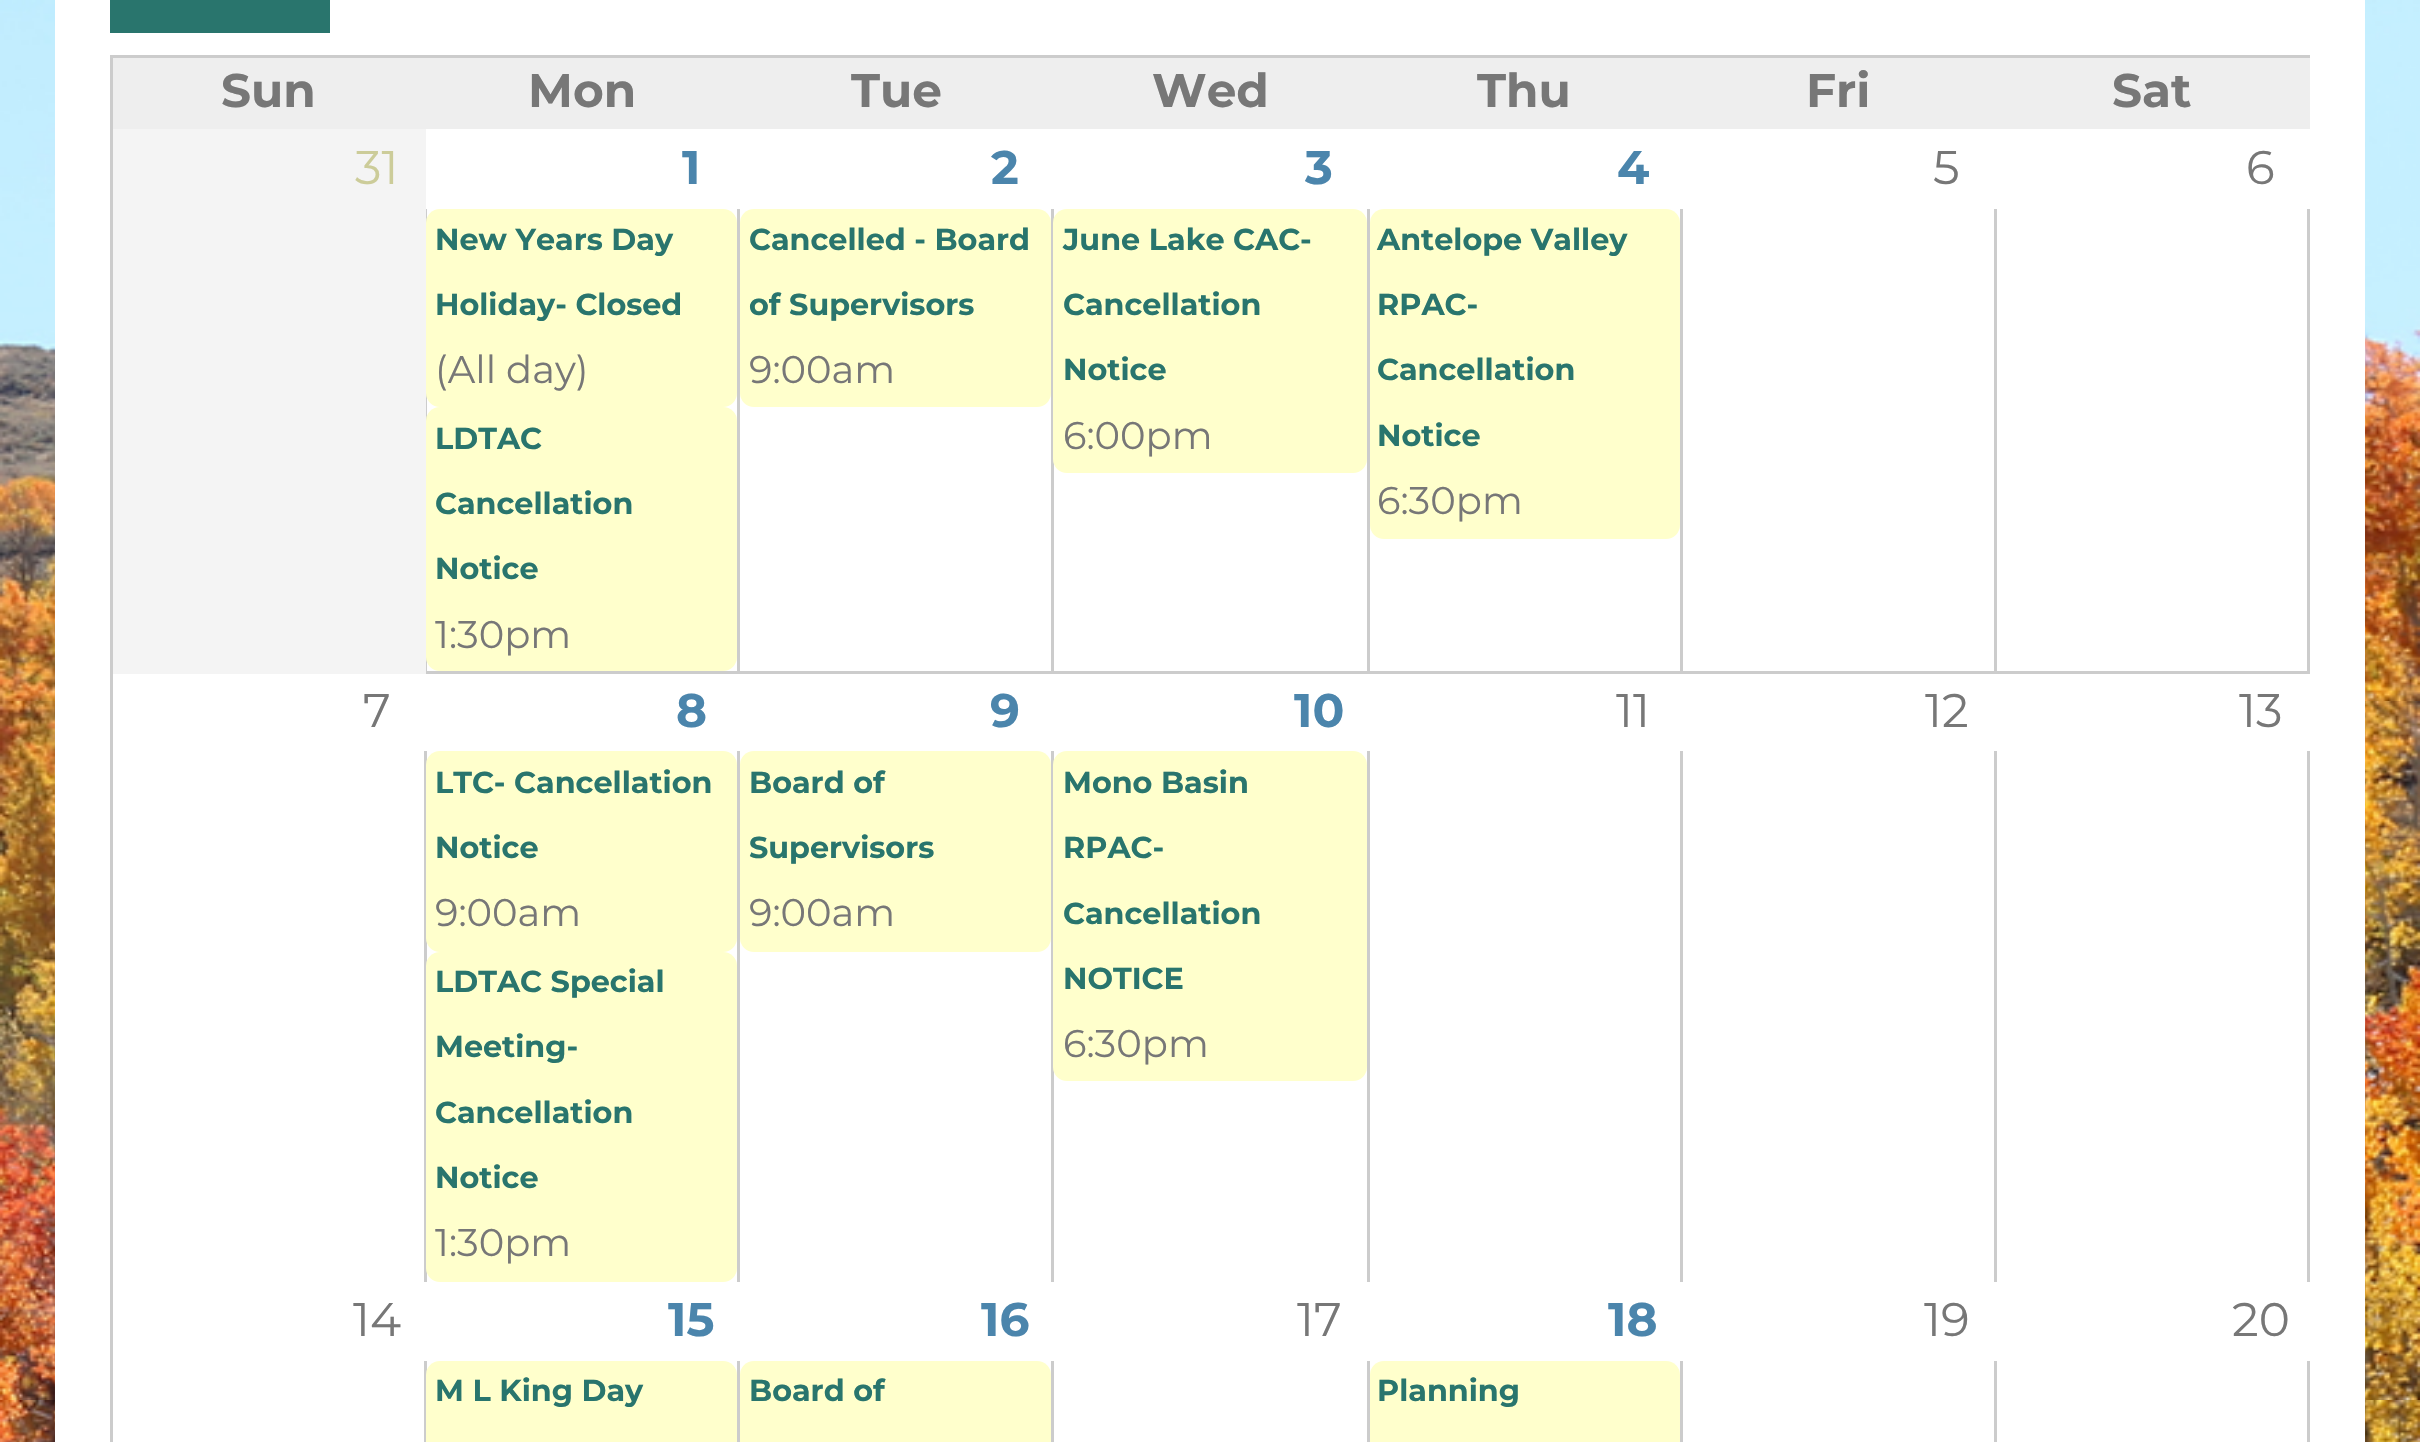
#include "include/core/SkBlurTypes.h"
#include "include/core/SkCanvas.h"
#include "include/core/SkData.h"
#include "include/core/SkFont.h"
#include "include/core/SkFontMgr.h"
#include "include/core/SkImage.h"
#include "include/core/SkMaskFilter.h"
#include "include/core/SkPaint.h"
#include "include/core/SkPathBuilder.h"
#include "include/core/SkTextBlob.h"
#include "include/effects/SkDashPathEffect.h"
#include "include/effects/SkGradientShader.h"
#include "include/utils/SkParsePath.h"

extern sk_sp<SkFontMgr> fontMgr;

void draw(SkCanvas* canvas) {
  SkPaint p;
  p.setAntiAlias(true);
  canvas->clear(SK_ColorWHITE);
  canvas->drawImageRect(SkImages::DeferredFromEncodedData(SkData::MakeFromFileName("images/1.png")), SkRect::MakeLTRB(0, 0, 2420, 1442), SkSamplingOptions());
  p.setColor(SK_ColorWHITE);
  canvas->drawRect(SkRect::MakeLTRB(55, 0, 2365, 1442), p);
  p.setColor(SkColorSetRGB(41, 117, 109));
  canvas->drawRect(SkRect::MakeLTRB(110, 0, 330, 33), p);
  p.setColor(SkColorSetRGB(204, 204, 204));
  canvas->drawRect(SkRect::MakeLTRB(110, 55, 2310, 58), p);
  canvas->drawRect(SkRect::MakeLTRB(110, 129, 113, 1442), p);
  canvas->drawRect(SkRect::MakeLTRB(110, 55, 113, 132), p);
  p.setColor(SkColorSetRGB(238, 238, 238));
  canvas->drawRect(SkRect::MakeLTRB(113, 58, 2310, 129), p);
  p.setColor(SkColorSetRGB(204, 204, 204));
  canvas->drawRect(SkRect::MakeLTRB(424, 671, 2310, 674), p);
  canvas->drawRect(SkRect::MakeLTRB(426, 206, 427, 674), p);
  canvas->drawRect(SkRect::MakeLTRB(737, 206, 740, 674), p);
  canvas->drawRect(SkRect::MakeLTRB(1051, 206, 1054, 674), p);
  canvas->drawRect(SkRect::MakeLTRB(1367, 206, 1370, 674), p);
  canvas->drawRect(SkRect::MakeLTRB(1680, 206, 1683, 674), p);
  canvas->drawRect(SkRect::MakeLTRB(2307, 206, 2310, 674), p);
  canvas->drawRect(SkRect::MakeLTRB(1994, 206, 1997, 674), p);
  p.setColor(SK_ColorWHITE);
  canvas->drawRect(SkRect::MakeLTRB(426, 206, 2310, 209), p);
  p.setColor(SkColorSetRGB(244, 244, 244));
  canvas->drawRect(SkRect::MakeLTRB(113, 129, 426, 674), p);
  p.setColor(SkColorSetRGB(255, 255, 204));
  canvas->drawRoundRect(SkRect::MakeLTRB(426, 209, 737, 407), 14, 14, p);
  canvas->drawRoundRect(SkRect::MakeLTRB(426, 407, 737, 671), 14, 14, p);
  canvas->drawRoundRect(SkRect::MakeLTRB(740, 209, 1051, 407), 14, 14, p);
  canvas->drawRoundRect(SkRect::MakeLTRB(1053, 209, 1367, 473), 14, 14, p);
  canvas->drawRoundRect(SkRect::MakeLTRB(1370, 209, 1680, 539), 14, 14, p);
  p.setColor(SkColorSetRGB(204, 204, 204));
  canvas->drawRect(SkRect::MakeLTRB(424, 751, 427, 1284), p);
  p.setColor(SkColorSetRGB(255, 255, 204));
  canvas->drawRoundRect(SkRect::MakeLTRB(426, 751, 737, 952), 14, 14, p);
  canvas->drawRoundRect(SkRect::MakeLTRB(426, 952, 737, 1282), 14, 14, p);
  p.setColor(SkColorSetRGB(204, 204, 204));
  canvas->drawRect(SkRect::MakeLTRB(737, 751, 740, 1284), p);
  p.setColor(SkColorSetRGB(255, 255, 204));
  canvas->drawRoundRect(SkRect::MakeLTRB(740, 751, 1051, 952), 14, 14, p);
  p.setColor(SkColorSetRGB(204, 204, 204));
  canvas->drawRect(SkRect::MakeLTRB(1051, 751, 1054, 1284), p);
  p.setColor(SkColorSetRGB(255, 255, 204));
  canvas->drawRoundRect(SkRect::MakeLTRB(1053, 751, 1367, 1081), 14, 14, p);
  p.setColor(SkColorSetRGB(204, 204, 204));
  canvas->drawRect(SkRect::MakeLTRB(1367, 751, 1370, 1284), p);
  canvas->drawRect(SkRect::MakeLTRB(1680, 751, 1683, 1284), p);
  canvas->drawRect(SkRect::MakeLTRB(2307, 751, 2310, 1284), p);
  canvas->drawRect(SkRect::MakeLTRB(1994, 751, 1997, 1284), p);
  canvas->drawRect(SkRect::MakeLTRB(424, 1359, 427, 1442), p);
  canvas->drawRect(SkRect::MakeLTRB(737, 1359, 740, 1442), p);
  canvas->drawRect(SkRect::MakeLTRB(1051, 1359, 1054, 1442), p);
  canvas->drawRect(SkRect::MakeLTRB(1367, 1359, 1370, 1442), p);
  canvas->drawRect(SkRect::MakeLTRB(1680, 1359, 1683, 1442), p);
  canvas->drawRect(SkRect::MakeLTRB(2307, 1359, 2310, 1442), p);
  canvas->drawRect(SkRect::MakeLTRB(1994, 1359, 1997, 1442), p);
  p.setColor(SK_ColorWHITE);
  canvas->drawRect(SkRect::MakeLTRB(424, 1282, 2310, 1361), p);
  p.setColor(SkColorSetRGB(255, 255, 204));
  canvas->drawRoundRect(SkRect::MakeLTRB(426, 1361, 737, 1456), 14, 14, p);
  canvas->drawRoundRect(SkRect::MakeLTRB(740, 1361, 1051, 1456), 14, 14, p);
  canvas->drawRoundRect(SkRect::MakeLTRB(1370, 1361, 1680, 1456), 14, 14, p);
  SkFont font1(fontMgr->matchFamilyStyle("Montserrat", SkFontStyle::Bold()), 47);
  font1.setSubpixel(true);
  p.setColor(SkColorSetRGB(119, 119, 119));
  canvas->drawString("Sun", 221, 107, font1, p);
  canvas->drawString("Mon", 528, 107, font1, p);
  canvas->drawString("Tue", 851, 107, font1, p);
  canvas->drawString("Wed", 1152, 107, font1, p);
  canvas->drawString("Thu", 1477, 107, font1, p);
  canvas->drawString("Fri", 1806, 107, font1, p);
  canvas->drawString("Sat", 2112, 107, font1, p);
  SkFont font2(fontMgr->matchFamilyStyle("Montserrat", SkFontStyle::Normal()), 47);
  font2.setSubpixel(true);
  p.setColor(SkColorSetRGB(204, 204, 153));
  canvas->drawString("31", 355, 184, font2, p);
  p.setColor(SkColorSetRGB(75, 133, 172));
  canvas->drawString("1", 682, 184, font1, p);
  canvas->drawString("2", 991, 184, font1, p);
  canvas->drawString("3", 1305, 184, font1, p);
  canvas->drawString("4", 1617, 184, font1, p);
  p.setColor(SkColorSetRGB(119, 119, 119));
  canvas->drawString("5", 1933, 184, font2, p);
  canvas->drawString("6", 2246, 184, font2, p);
  SkFont font3(fontMgr->matchFamilyStyle("Montserrat", SkFontStyle::Bold()), 30.25f);
  font3.setSubpixel(true);
  p.setColor(SkColorSetRGB(41, 117, 109));
  canvas->drawString("New Years Day", 435, 250, font3, p);
  canvas->drawString("Holiday- Closed", 435, 315, font3, p);
  SkFont font4(fontMgr->matchFamilyStyle("Montserrat", SkFontStyle::Normal()), 38.5f);
  font4.setSubpixel(true);
  p.setColor(SkColorSetRGB(119, 119, 119));
  canvas->drawString("(All day)", 435, 383, font4, p);
  p.setColor(SkColorSetRGB(41, 117, 109));
  canvas->drawString("LDTAC", 435, 449, font3, p);
  canvas->drawString("Cancellation", 435, 514, font3, p);
  canvas->drawString("Notice", 435, 579, font3, p);
  p.setColor(SkColorSetRGB(119, 119, 119));
  canvas->drawString("1:30pm", 435, 648, font4, p);
  p.setColor(SkColorSetRGB(41, 117, 109));
  canvas->drawString("Cancelled - Board", 749, 250, font3, p);
  canvas->drawString("of Supervisors", 749, 315, font3, p);
  p.setColor(SkColorSetRGB(119, 119, 119));
  canvas->drawString("9:00am", 749, 383, font4, p);
  p.setColor(SkColorSetRGB(41, 117, 109));
  canvas->drawString("June Lake CAC-", 1063, 250, font3, p);
  canvas->drawString("Cancellation", 1063, 315, font3, p);
  canvas->drawString("Notice", 1063, 380, font3, p);
  p.setColor(SkColorSetRGB(119, 119, 119));
  canvas->drawString("6:00pm", 1063, 449, font4, p);
  p.setColor(SkColorSetRGB(41, 117, 109));
  canvas->drawString("Antelope Valley", 1377, 250, font3, p);
  canvas->drawString("RPAC-", 1377, 315, font3, p);
  canvas->drawString("Cancellation", 1377, 380, font3, p);
  canvas->drawString("Notice", 1377, 446, font3, p);
  p.setColor(SkColorSetRGB(119, 119, 119));
  canvas->drawString("6:30pm", 1377, 514, font4, p);
  canvas->drawString("7", 363, 727, font2, p);
  p.setColor(SkColorSetRGB(75, 133, 172));
  canvas->drawString("8", 676, 727, font1, p);
  canvas->drawString("9", 990, 727, font1, p);
  canvas->drawString("10", 1294, 727, font1, p);
  p.setColor(SkColorSetRGB(119, 119, 119));
  canvas->drawString("11", 1616, 727, font2, p);
  canvas->drawString("12", 1925, 727, font2, p);
  canvas->drawString("13", 2239, 727, font2, p);
  p.setColor(SkColorSetRGB(41, 117, 109));
  canvas->drawString("LTC- Cancellation", 435, 793, font3, p);
  canvas->drawString("Notice", 435, 858, font3, p);
  p.setColor(SkColorSetRGB(119, 119, 119));
  canvas->drawString("9:00am", 435, 926, font4, p);
  p.setColor(SkColorSetRGB(41, 117, 109));
  canvas->drawString("LDTAC Special", 435, 992, font3, p);
  canvas->drawString("Meeting-", 435, 1057, font3, p);
  canvas->drawString("Cancellation", 435, 1123, font3, p);
  canvas->drawString("Notice", 435, 1188, font3, p);
  p.setColor(SkColorSetRGB(119, 119, 119));
  canvas->drawString("1:30pm", 435, 1256, font4, p);
  p.setColor(SkColorSetRGB(41, 117, 109));
  canvas->drawString("Board of", 749, 793, font3, p);
  canvas->drawString("Supervisors", 749, 858, font3, p);
  p.setColor(SkColorSetRGB(119, 119, 119));
  canvas->drawString("9:00am", 749, 926, font4, p);
  p.setColor(SkColorSetRGB(41, 117, 109));
  canvas->drawString("Mono Basin", 1063, 793, font3, p);
  canvas->drawString("RPAC-", 1063, 858, font3, p);
  canvas->drawString("Cancellation", 1063, 924, font3, p);
  canvas->drawString("NOTICE", 1063, 989, font3, p);
  p.setColor(SkColorSetRGB(119, 119, 119));
  canvas->drawString("6:30pm", 1063, 1057, font4, p);
  canvas->drawString("14", 353, 1336, font2, p);
  p.setColor(SkColorSetRGB(75, 133, 172));
  canvas->drawString("15", 668, 1336, font1, p);
  canvas->drawString("16", 981, 1336, font1, p);
  p.setColor(SkColorSetRGB(119, 119, 119));
  canvas->drawString("17", 1297, 1336, font2, p);
  p.setColor(SkColorSetRGB(75, 133, 172));
  canvas->drawString("18", 1608, 1336, font1, p);
  p.setColor(SkColorSetRGB(119, 119, 119));
  canvas->drawString("19", 1924, 1336, font2, p);
  canvas->drawString("20", 2232, 1336, font2, p);
  p.setColor(SkColorSetRGB(41, 117, 109));
  canvas->drawString("M L King Day", 435, 1401, font3, p);
  canvas->drawString("Board of", 749, 1401, font3, p);
  canvas->drawString("Planning", 1377, 1401, font3, p);
}
